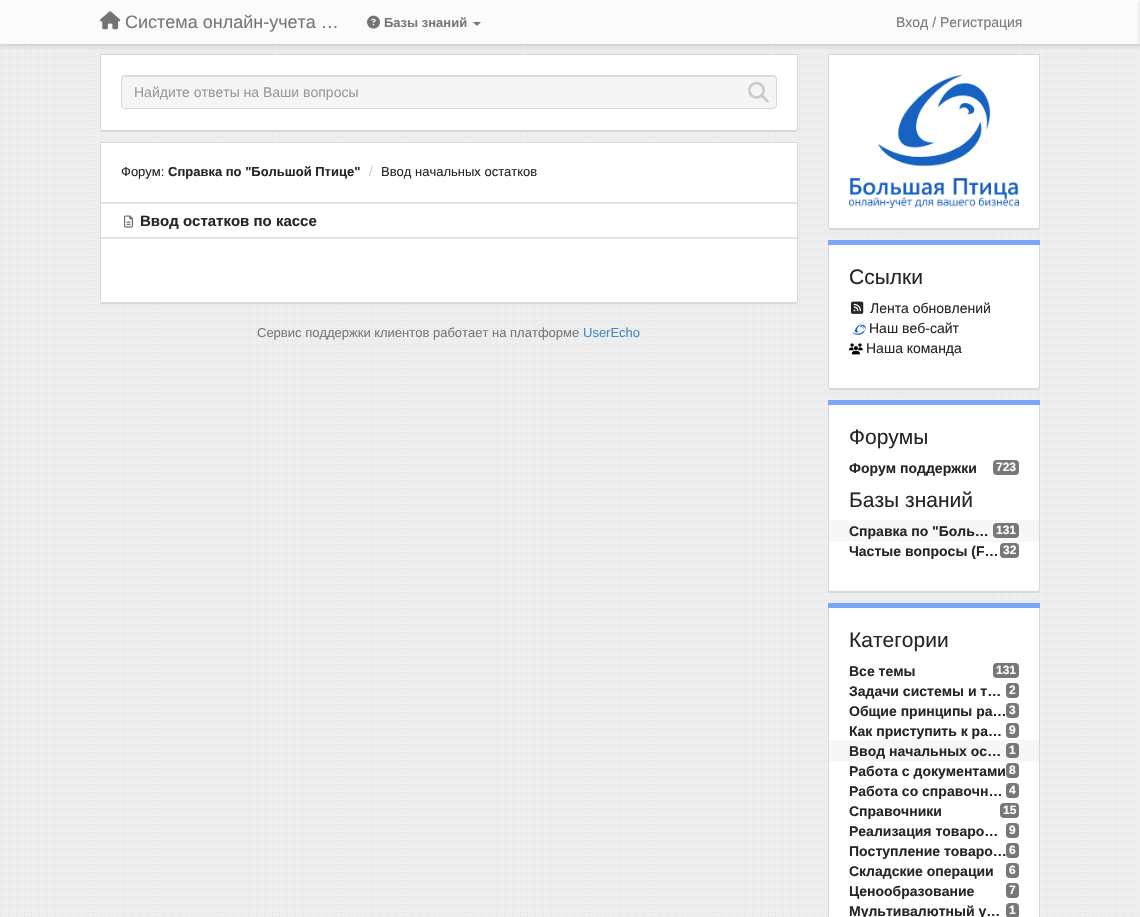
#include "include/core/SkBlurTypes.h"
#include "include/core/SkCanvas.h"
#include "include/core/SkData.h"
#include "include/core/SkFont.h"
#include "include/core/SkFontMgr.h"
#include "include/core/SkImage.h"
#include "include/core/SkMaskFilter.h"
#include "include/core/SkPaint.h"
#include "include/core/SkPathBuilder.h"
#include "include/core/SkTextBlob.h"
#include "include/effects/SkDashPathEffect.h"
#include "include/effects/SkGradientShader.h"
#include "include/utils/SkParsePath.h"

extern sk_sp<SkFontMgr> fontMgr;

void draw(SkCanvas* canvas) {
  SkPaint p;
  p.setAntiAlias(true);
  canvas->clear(SK_ColorWHITE);
  canvas->drawImageRect(SkImages::DeferredFromEncodedData(SkData::MakeFromFileName("images/1.png")), SkRect::MakeLTRB(0, 44, 1140, 917), SkSamplingOptions());
  p.setColor(SkColorSetARGB(38, 0, 0, 0));
  p.setMaskFilter(SkMaskFilter::MakeBlur(kNormal_SkBlurStyle, 2));
  canvas->drawRect(SkRect::MakeLTRB(0, 2, 1140, 46), p);
  p.setMaskFilter(nullptr);
  p.setColor(SkColorSetRGB(251, 251, 251));
  canvas->drawRect(SkRect::MakeLTRB(0, 0, 1140, 44), p);
  canvas->drawImageRect(SkImages::DeferredFromEncodedData(SkData::MakeFromFileName("images/2.png")), SkRect::MakeLTRB(100, 11, 121, 30), SkSamplingOptions());
  canvas->drawImageRect(SkImages::DeferredFromEncodedData(SkData::MakeFromFileName("images/3.png")), SkRect::MakeLTRB(367, 15, 380, 29), SkSamplingOptions());
  p.setColor(SkColorSetRGB(115, 115, 115));
  canvas->drawPath(SkPathBuilder().moveTo(473, 22).lineTo(481, 22).lineTo(477, 26).close().detach(), p);
  p.setColor(SkColorSetARGB(38, 0, 0, 0));
  p.setMaskFilter(SkMaskFilter::MakeBlur(kNormal_SkBlurStyle, 2));
  canvas->drawRect(SkRect::MakeLTRB(1140, 2, 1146, 46), p);
  p.setMaskFilter(nullptr);
  p.setColor(SkColorSetRGB(216, 216, 216));
  canvas->drawRect(SkRect::MakeLTRB(100, 54, 798, 55), p);
  p.setColor(SK_ColorWHITE);
  canvas->drawPath(SkPathBuilder().moveTo(101, 55).lineTo(797, 55).lineTo(797, 129).cubicTo(797, 130, 796, 130, 795, 130).lineTo(103, 130).cubicTo(102, 130, 101, 130, 101, 129).close().detach(), p);
  p.setColor(SkColorSetRGB(216, 216, 216));
  canvas->drawPath(SkPathBuilder(SkPathFillType::kEvenOdd).moveTo(100, 55).lineTo(798, 55).lineTo(798, 129).cubicTo(798, 131, 797, 132, 795, 132).lineTo(103, 132).cubicTo(101, 132, 100, 131, 100, 129).close().moveTo(101, 55).lineTo(797, 55).lineTo(797, 129).cubicTo(797, 130, 796, 130, 795, 130).lineTo(103, 130).cubicTo(102, 130, 101, 130, 101, 129).close().detach(), p);
  p.setColor(SkColorSetRGB(245, 245, 245));
  canvas->drawRoundRect(SkRect::MakeLTRB(121, 75, 777, 109), 4, 4, p);
  p.setColor(SkColorSetRGB(227, 227, 227));
  canvas->drawPath(SkPathBuilder().moveTo(125, 77).lineTo(773, 77).cubicTo(775, 77, 776, 78, 776, 80).lineTo(776, 79).cubicTo(776, 77, 775, 76, 773, 76).lineTo(125, 76).cubicTo(123, 76, 122, 77, 122, 79).lineTo(122, 80).cubicTo(122, 78, 123, 77, 125, 77).close().detach(), p);
  p.setStyle(SkPaint::kStroke_Style);
  p.setStrokeWidth(1);
  p.setColor(SkColorSetRGB(216, 216, 216));
  canvas->drawRoundRect(SkRect::MakeLTRB(121.5f, 75.5f, 776.5f, 108.5f), 3.5f, 3.5f, p);
  canvas->drawImageRect(SkImages::DeferredFromEncodedData(SkData::MakeFromFileName("images/4.png")), SkRect::MakeLTRB(748, 81, 769, 103), SkSamplingOptions());
  p.setStyle(SkPaint::kFill_Style);
  canvas->drawRect(SkRect::MakeLTRB(100, 142, 798, 143), p);
  p.setColor(SkColorSetRGB(227, 227, 227));
  canvas->drawPath(SkPathBuilder().moveTo(101, 143).lineTo(797, 143).lineTo(797, 301).cubicTo(797, 302, 796, 302, 795, 302).lineTo(103, 302).cubicTo(102, 302, 101, 302, 101, 301).close().detach(), p);
  p.setColor(SkColorSetRGB(216, 216, 216));
  canvas->drawPath(SkPathBuilder(SkPathFillType::kEvenOdd).moveTo(100, 143).lineTo(798, 143).lineTo(798, 301).cubicTo(798, 303, 797, 304, 795, 304).lineTo(103, 304).cubicTo(101, 304, 100, 303, 100, 301).close().moveTo(101, 143).lineTo(797, 143).lineTo(797, 301).cubicTo(797, 302, 796, 302, 795, 302).lineTo(103, 302).cubicTo(102, 302, 101, 302, 101, 301).close().detach(), p);
  p.setColor(SK_ColorWHITE);
  canvas->drawRect(SkRect::MakeLTRB(101, 143, 797, 202), p);
  canvas->drawRect(SkRect::MakeLTRB(101, 204, 797, 237), p);
  canvas->drawImageRect(SkImages::DeferredFromEncodedData(SkData::MakeFromFileName("images/5.png")), SkRect::MakeLTRB(124, 215, 133, 228), SkSamplingOptions());
  canvas->drawRect(SkRect::MakeLTRB(101, 239, 797, 302), p);
  p.setColor(SkColorSetRGB(216, 216, 216));
  canvas->drawRect(SkRect::MakeLTRB(828, 54, 1040, 55), p);
  p.setColor(SK_ColorWHITE);
  canvas->drawPath(SkPathBuilder().moveTo(829, 55).lineTo(1039, 55).lineTo(1039, 227).cubicTo(1039, 228, 1038, 228, 1037, 228).lineTo(831, 228).cubicTo(830, 228, 829, 228, 829, 227).close().detach(), p);
  p.setColor(SkColorSetRGB(216, 216, 216));
  canvas->drawPath(SkPathBuilder(SkPathFillType::kEvenOdd).moveTo(828, 55).lineTo(1040, 55).lineTo(1040, 227).cubicTo(1040, 229, 1039, 230, 1037, 230).lineTo(831, 230).cubicTo(829, 230, 828, 229, 828, 227).close().moveTo(829, 55).lineTo(1039, 55).lineTo(1039, 227).cubicTo(1039, 228, 1038, 228, 1037, 228).lineTo(831, 228).cubicTo(830, 228, 829, 228, 829, 227).close().detach(), p);
  canvas->drawImageRect(SkImages::DeferredFromEncodedData(SkData::MakeFromFileName("images/6.png")), SkRect::MakeLTRB(849, 75, 1019, 208), SkSamplingOptions());
  p.setColor(SkColorSetRGB(118, 167, 250));
  canvas->drawRect(SkRect::MakeLTRB(828, 240, 1040, 245), p);
  p.setColor(SK_ColorWHITE);
  canvas->drawPath(SkPathBuilder().moveTo(829, 245).lineTo(1039, 245).lineTo(1039, 387).lineTo(1037, 388).lineTo(831, 388).cubicTo(830, 388, 829, 388, 829, 387).close().detach(), p);
  p.setColor(SkColorSetRGB(216, 216, 216));
  canvas->drawPath(SkPathBuilder(SkPathFillType::kEvenOdd).moveTo(828, 245).lineTo(1040, 245).lineTo(1040, 387).cubicTo(1040, 389, 1039, 390, 1037, 390).lineTo(831, 390).cubicTo(829, 390, 828, 389, 828, 387).close().moveTo(829, 245).lineTo(1039, 245).lineTo(1039, 387).lineTo(1037, 388).lineTo(831, 388).cubicTo(830, 388, 829, 388, 829, 387).close().detach(), p);
  canvas->drawImageRect(SkImages::DeferredFromEncodedData(SkData::MakeFromFileName("images/7.png")), SkRect::MakeLTRB(851, 301, 864, 314), SkSamplingOptions());
  canvas->drawImageRect(SkImages::DeferredFromEncodedData(SkData::MakeFromFileName("images/8.png")), SkRect::MakeLTRB(852, 324, 866, 335), SkSamplingOptions());
  canvas->drawImageRect(SkImages::DeferredFromEncodedData(SkData::MakeFromFileName("images/9.png")), SkRect::MakeLTRB(849, 343, 863, 355), SkSamplingOptions());
  p.setColor(SkColorSetRGB(118, 167, 250));
  canvas->drawRect(SkRect::MakeLTRB(828, 400, 1040, 405), p);
  p.setColor(SK_ColorWHITE);
  canvas->drawPath(SkPathBuilder().moveTo(829, 405).lineTo(1039, 405).lineTo(1039, 590).lineTo(1037, 591).lineTo(831, 591).cubicTo(830, 591, 829, 591, 829, 590).close().detach(), p);
  p.setColor(SkColorSetRGB(216, 216, 216));
  canvas->drawPath(SkPathBuilder(SkPathFillType::kEvenOdd).moveTo(828, 405).lineTo(1040, 405).lineTo(1040, 590).cubicTo(1040, 592, 1039, 593, 1037, 593).lineTo(831, 593).cubicTo(829, 593, 828, 592, 828, 590).close().moveTo(829, 405).lineTo(1039, 405).lineTo(1039, 590).lineTo(1037, 591).lineTo(831, 591).cubicTo(830, 591, 829, 591, 829, 590).close().detach(), p);
  p.setColor(SkColorSetRGB(119, 119, 119));
  canvas->drawRoundRect(SkRect::MakeLTRB(993, 460, 1019, 475), 4, 4, p);
  p.setColor(SkColorSetRGB(247, 247, 247));
  canvas->drawRect(SkRect::MakeLTRB(829, 520, 1039, 542), p);
  p.setColor(SkColorSetRGB(119, 119, 119));
  canvas->drawRoundRect(SkRect::MakeLTRB(993, 523, 1019, 538), 4, 4, p);
  canvas->drawRoundRect(SkRect::MakeLTRB(1000, 543, 1019, 558), 4, 4, p);
  p.setColor(SkColorSetRGB(118, 167, 250));
  canvas->drawRect(SkRect::MakeLTRB(828, 603, 1040, 608), p);
  p.setColor(SK_ColorWHITE);
  canvas->drawPath(SkPathBuilder().moveTo(829, 608).lineTo(1039, 608).lineTo(1039, 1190).cubicTo(1039, 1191, 1038, 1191, 1037, 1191).lineTo(831, 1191).cubicTo(830, 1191, 829, 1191, 829, 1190).close().detach(), p);
  p.setColor(SkColorSetRGB(216, 216, 216));
  canvas->drawPath(SkPathBuilder(SkPathFillType::kEvenOdd).moveTo(828, 608).lineTo(1040, 608).lineTo(1040, 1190).cubicTo(1040, 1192, 1039, 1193, 1037, 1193).lineTo(831, 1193).cubicTo(829, 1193, 828, 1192, 828, 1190).close().moveTo(829, 608).lineTo(1039, 608).lineTo(1039, 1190).cubicTo(1039, 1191, 1038, 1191, 1037, 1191).lineTo(831, 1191).cubicTo(830, 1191, 829, 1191, 829, 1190).close().detach(), p);
  p.setColor(SkColorSetRGB(119, 119, 119));
  canvas->drawRoundRect(SkRect::MakeLTRB(993, 663, 1019, 678), 4, 4, p);
  canvas->drawRoundRect(SkRect::MakeLTRB(1006, 683, 1019, 698), 4, 4, p);
  canvas->drawRoundRect(SkRect::MakeLTRB(1006, 703, 1019, 718), 4, 4, p);
  canvas->drawRoundRect(SkRect::MakeLTRB(1006, 723, 1019, 738), 4, 4, p);
  p.setColor(SkColorSetRGB(247, 247, 247));
  canvas->drawRect(SkRect::MakeLTRB(829, 740, 1039, 762), p);
  p.setColor(SkColorSetRGB(119, 119, 119));
  canvas->drawRoundRect(SkRect::MakeLTRB(1006, 743, 1019, 758), 4, 4, p);
  canvas->drawRoundRect(SkRect::MakeLTRB(1006, 763, 1019, 778), 4, 4, p);
  canvas->drawRoundRect(SkRect::MakeLTRB(1006, 783, 1019, 798), 4, 4, p);
  canvas->drawRoundRect(SkRect::MakeLTRB(1000, 803, 1019, 818), 4, 4, p);
  canvas->drawRoundRect(SkRect::MakeLTRB(1006, 823, 1019, 838), 4, 4, p);
  canvas->drawRoundRect(SkRect::MakeLTRB(1006, 843, 1019, 858), 4, 4, p);
  canvas->drawRoundRect(SkRect::MakeLTRB(1006, 863, 1019, 878), 4, 4, p);
  canvas->drawRoundRect(SkRect::MakeLTRB(1006, 883, 1019, 898), 4, 4, p);
  canvas->drawRoundRect(SkRect::MakeLTRB(1006, 903, 1019, 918), 4, 4, p);
  SkFont font1(fontMgr->matchFamilyStyle("Liberation Sans", SkFontStyle::Normal()), 18);
  font1.setSubpixel(true);
  canvas->drawString("Система онлайн-учета …", 125, 28, font1, p);
  SkFont font2(fontMgr->matchFamilyStyle("Liberation Sans", SkFontStyle::Bold()), 13);
  font2.setSubpixel(true);
  canvas->drawString("Базы знаний", 384, 27, font2, p);
  SkFont font3(fontMgr->matchFamilyStyle("Liberation Sans", SkFontStyle::Normal()), 14);
  font3.setSubpixel(true);
  canvas->drawString("Вход / Регистрация", 896, 27, font3, p);
  p.setColor(SkColorSetRGB(153, 153, 153));
  canvas->drawString("Найдите ответы на Ваши вопросы", 134, 97, font3, p);
  SkFont font4(fontMgr->matchFamilyStyle("Liberation Sans", SkFontStyle::Normal()), 13);
  font4.setSubpixel(true);
  p.setColor(SkColorSetRGB(38, 38, 38));
  canvas->drawString("Форум:", 121, 176, font4, p);
  canvas->drawString("Справка по \"Большой Птице\"", 168, 176, font2, p);
  p.setColor(SkColorSetRGB(204, 204, 204));
  canvas->drawString("/", 369, 176, font4, p);
  p.setColor(SkColorSetRGB(38, 38, 38));
  canvas->drawString("Ввод начальных остатков", 381, 176, font4, p);
  SkFont font5(fontMgr->matchFamilyStyle("Liberation Sans", SkFontStyle::Bold()), 15);
  font5.setSubpixel(true);
  canvas->drawString("Ввод остатков по кассе", 140, 226, font5, p);
  p.setColor(SkColorSetRGB(119, 119, 119));
  canvas->drawString("Сервис поддержки клиентов работает на платформе", 257, 337, font4, p);
  p.setColor(SkColorSetRGB(66, 139, 202));
  canvas->drawString("UserEcho", 583, 337, font4, p);
  SkFont font6(fontMgr->matchFamilyStyle("Liberation Sans", SkFontStyle::Normal()), 21);
  font6.setSubpixel(true);
  p.setColor(SkColorSetRGB(38, 38, 38));
  canvas->drawString("Ссылки", 849, 284, font6, p);
  canvas->drawString("Лента обновлений", 870, 313, font3, p);
  canvas->drawString("Наш веб-сайт", 869, 333, font3, p);
  canvas->drawString("Наша команда", 866, 353, font3, p);
  canvas->drawString("Форумы", 849, 444, font6, p);
  SkFont font7(fontMgr->matchFamilyStyle("Liberation Sans", SkFontStyle::Bold()), 14);
  font7.setSubpixel(true);
  canvas->drawString("Форум поддержки", 849, 473, font7, p);
  SkFont font8(fontMgr->matchFamilyStyle("Liberation Sans", SkFontStyle::Bold()), 12);
  font8.setSubpixel(true);
  p.setColor(SK_ColorWHITE);
  canvas->drawString("723", 996, 471, font8, p);
  p.setColor(SkColorSetRGB(38, 38, 38));
  canvas->drawString("Базы знаний", 849, 507, font6, p);
  canvas->drawString("Справка по \"Боль…", 849, 536, font7, p);
  p.setColor(SK_ColorWHITE);
  canvas->drawString("131", 996, 534, font8, p);
  p.setColor(SkColorSetRGB(38, 38, 38));
  canvas->drawString("Частые вопросы (F…", 849, 556, font7, p);
  p.setColor(SK_ColorWHITE);
  canvas->drawString("32", 1003, 554, font8, p);
  p.setColor(SkColorSetRGB(38, 38, 38));
  canvas->drawString("Категории", 849, 647, font6, p);
  canvas->drawString("Все темы", 849, 676, font7, p);
  p.setColor(SK_ColorWHITE);
  canvas->drawString("131", 996, 674, font8, p);
  p.setColor(SkColorSetRGB(38, 38, 38));
  canvas->drawString("Задачи системы и т…", 849, 696, font7, p);
  p.setColor(SK_ColorWHITE);
  canvas->drawString("2", 1009, 694, font8, p);
  p.setColor(SkColorSetRGB(38, 38, 38));
  canvas->drawString("Общие принципы ра…", 849, 716, font7, p);
  p.setColor(SK_ColorWHITE);
  canvas->drawString("3", 1009, 714, font8, p);
  p.setColor(SkColorSetRGB(38, 38, 38));
  canvas->drawString("Как приступить к ра…", 849, 736, font7, p);
  p.setColor(SK_ColorWHITE);
  canvas->drawString("9", 1009, 734, font8, p);
  p.setColor(SkColorSetRGB(38, 38, 38));
  canvas->drawString("Ввод начальных ос…", 849, 756, font7, p);
  p.setColor(SK_ColorWHITE);
  canvas->drawString("1", 1009, 754, font8, p);
  p.setColor(SkColorSetRGB(38, 38, 38));
  canvas->drawString("Работа с документами", 849, 776, font7, p);
  p.setColor(SK_ColorWHITE);
  canvas->drawString("8", 1009, 774, font8, p);
  p.setColor(SkColorSetRGB(38, 38, 38));
  canvas->drawString("Работа со справочн…", 849, 796, font7, p);
  p.setColor(SK_ColorWHITE);
  canvas->drawString("4", 1009, 794, font8, p);
  p.setColor(SkColorSetRGB(38, 38, 38));
  canvas->drawString("Справочники", 849, 816, font7, p);
  p.setColor(SK_ColorWHITE);
  canvas->drawString("15", 1003, 814, font8, p);
  p.setColor(SkColorSetRGB(38, 38, 38));
  canvas->drawString("Реализация товаро…", 849, 836, font7, p);
  p.setColor(SK_ColorWHITE);
  canvas->drawString("9", 1009, 834, font8, p);
  p.setColor(SkColorSetRGB(38, 38, 38));
  canvas->drawString("Поступление товаро…", 849, 856, font7, p);
  p.setColor(SK_ColorWHITE);
  canvas->drawString("6", 1009, 854, font8, p);
  p.setColor(SkColorSetRGB(38, 38, 38));
  canvas->drawString("Складские операции", 849, 876, font7, p);
  p.setColor(SK_ColorWHITE);
  canvas->drawString("6", 1009, 874, font8, p);
  p.setColor(SkColorSetRGB(38, 38, 38));
  canvas->drawString("Ценообразование", 849, 896, font7, p);
  p.setColor(SK_ColorWHITE);
  canvas->drawString("7", 1009, 894, font8, p);
  p.setColor(SkColorSetRGB(38, 38, 38));
  canvas->drawString("Мультивалютный у…", 849, 916, font7, p);
  p.setColor(SK_ColorWHITE);
  canvas->drawString("1", 1009, 914, font8, p);
}
